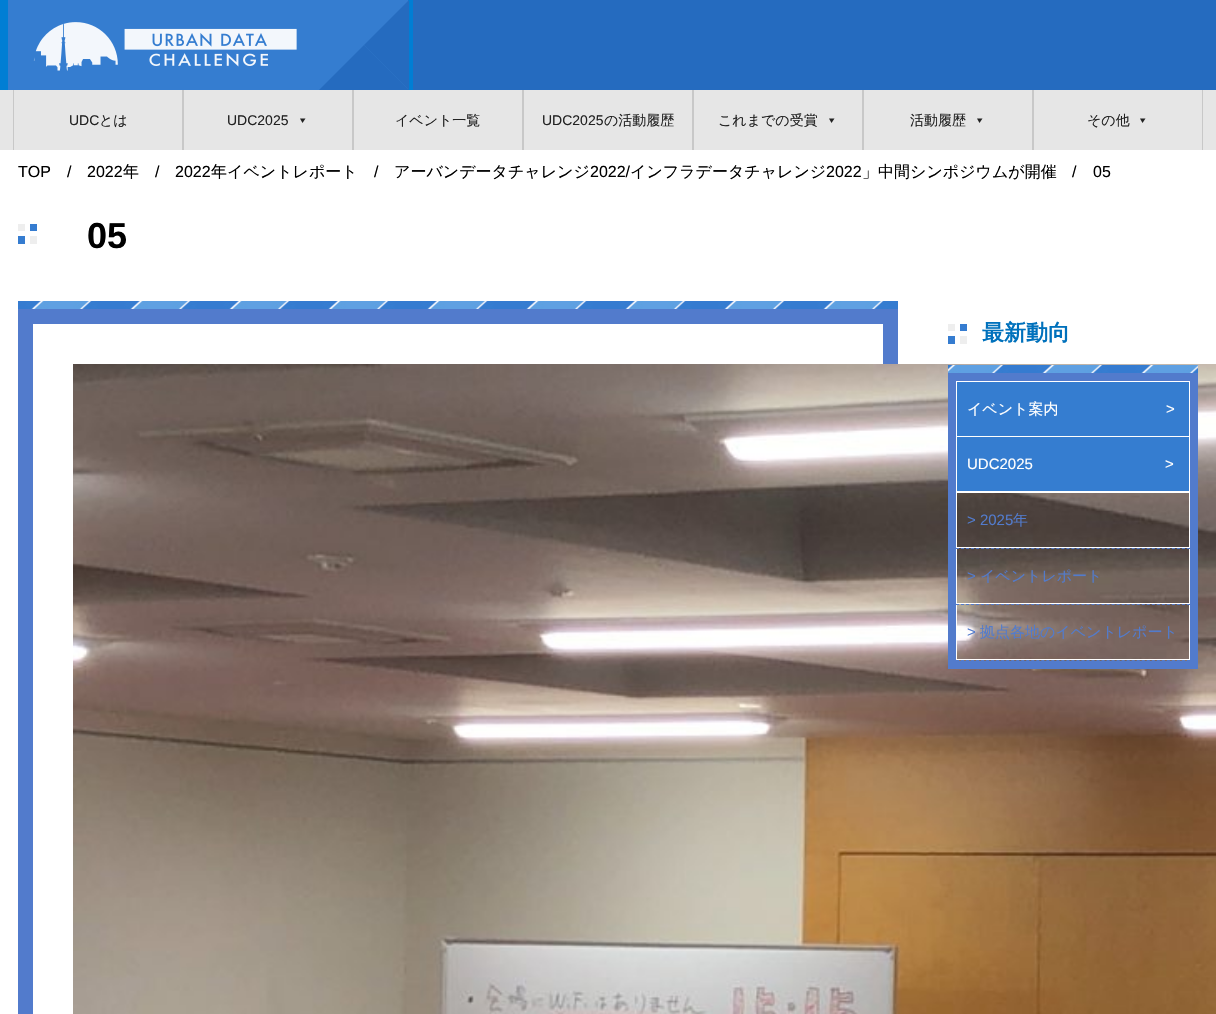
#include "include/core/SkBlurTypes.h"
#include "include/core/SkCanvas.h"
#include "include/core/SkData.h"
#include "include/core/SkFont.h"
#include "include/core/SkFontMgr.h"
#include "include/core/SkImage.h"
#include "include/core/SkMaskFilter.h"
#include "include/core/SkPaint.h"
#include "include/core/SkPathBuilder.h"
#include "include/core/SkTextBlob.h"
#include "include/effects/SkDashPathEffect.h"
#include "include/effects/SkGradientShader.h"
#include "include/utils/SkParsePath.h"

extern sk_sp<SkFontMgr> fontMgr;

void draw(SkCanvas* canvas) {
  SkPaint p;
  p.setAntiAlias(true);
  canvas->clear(SK_ColorWHITE);
  p.setColor(SkColorSetRGB(37, 107, 191));
  canvas->drawRect(SkRect::MakeLTRB(413, 0, 1216, 90), p);
  p.setColor(SkColorSetRGB(0, 126, 212));
  canvas->drawRect(SkRect::MakeLTRB(0, 0, 413, 90), p);
  p.setColor(SkColorSetRGB(53, 125, 208));
  canvas->drawRect(SkRect::MakeLTRB(8, 0, 408, 90), p);
  canvas->drawImageRect(SkImages::DeferredFromEncodedData(SkData::MakeFromFileName("images/1.png")), SkRect::MakeLTRB(33, 22, 297, 71), SkSamplingOptions());
  p.setColor(SkColorSetRGB(37, 107, 191));
  canvas->drawPath(SkPathBuilder().moveTo(409, 0).lineTo(409, 90).lineTo(364, 45).close().detach(), p);
  canvas->drawPath(SkPathBuilder().moveTo(409, 90).lineTo(319, 90).lineTo(364, 45).close().detach(), p);
  p.setColor(SkColorSetRGB(230, 230, 230));
  canvas->drawRect(SkRect::MakeLTRB(0, 90, 1216, 150), p);
  p.setColor(SkColorSetRGB(200, 200, 200));
  canvas->drawRect(SkRect::MakeLTRB(182, 90, 184, 150), p);
  canvas->drawRect(SkRect::MakeLTRB(13, 90, 14, 150), p);
  canvas->drawRect(SkRect::MakeLTRB(352, 90, 354, 150), p);
  p.setColor(SkColorSetRGB(34, 34, 34));
  canvas->drawPath(SkPathBuilder().moveTo(305.5f, 118.5f).lineTo(302.5f, 123).lineTo(300, 118.5f).close().detach(), p);
  p.setColor(SkColorSetRGB(200, 200, 200));
  canvas->drawRect(SkRect::MakeLTRB(522, 90, 524, 150), p);
  canvas->drawRect(SkRect::MakeLTRB(692, 90, 694, 150), p);
  canvas->drawRect(SkRect::MakeLTRB(862, 90, 864, 150), p);
  p.setColor(SkColorSetRGB(34, 34, 34));
  canvas->drawPath(SkPathBuilder().moveTo(834.5f, 118.5f).lineTo(831.5f, 123).lineTo(829, 118.5f).close().detach(), p);
  p.setColor(SkColorSetRGB(200, 200, 200));
  canvas->drawRect(SkRect::MakeLTRB(1032, 90, 1034, 150), p);
  p.setColor(SkColorSetRGB(34, 34, 34));
  canvas->drawPath(SkPathBuilder().moveTo(982.5f, 118.5f).lineTo(979.5f, 123).lineTo(977, 118.5f).close().detach(), p);
  p.setColor(SkColorSetRGB(200, 200, 200));
  canvas->drawRect(SkRect::MakeLTRB(1202, 90, 1203, 150), p);
  p.setColor(SkColorSetRGB(34, 34, 34));
  canvas->drawPath(SkPathBuilder().moveTo(1145.5f, 118.5f).lineTo(1142.5f, 123).lineTo(1140, 118.5f).close().detach(), p);
  canvas->drawImageRect(SkImages::DeferredFromEncodedData(SkData::MakeFromFileName("images/2.png")), SkRect::MakeLTRB(18, 224, 37, 244), SkSamplingOptions());
  canvas->drawImageRect(SkImages::DeferredFromEncodedData(SkData::MakeFromFileName("images/3.png")), SkRect::MakeLTRB(18, 301, 898, 309), SkSamplingOptions());
  p.setStyle(SkPaint::kStroke_Style);
  p.setStrokeWidth(15);
  p.setColor(SkColorSetRGB(82, 123, 204));
  canvas->drawRect(SkRect::MakeLTRB(25.5f, 316.5f, 890.5f, 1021.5f), p);
  canvas->drawImageRect(SkImages::DeferredFromEncodedData(SkData::MakeFromFileName("images/4.png")), SkRect::MakeLTRB(73, 364, 1216, 1014), SkSamplingOptions());
  canvas->drawImageRect(SkImages::DeferredFromEncodedData(SkData::MakeFromFileName("images/2.png")), SkRect::MakeLTRB(948, 324, 967, 344), SkSamplingOptions());
  canvas->drawImageRect(SkImages::DeferredFromEncodedData(SkData::MakeFromFileName("images/5.png")), SkRect::MakeLTRB(948, 365, 1198, 373), SkSamplingOptions());
  p.setStrokeWidth(8);
  canvas->drawRect(SkRect::MakeLTRB(952, 377, 1194, 665), p);
  p.setStyle(SkPaint::kFill_Style);
  p.setColor(SkColorSetRGB(53, 125, 208));
  canvas->drawRect(SkRect::MakeLTRB(957, 382, 1189, 436), p);
  p.setColor(SK_ColorWHITE);
  canvas->drawRect(SkRect::MakeLTRB(956, 381, 1190, 382), p);
  canvas->drawRect(SkRect::MakeLTRB(1189, 382, 1190, 492), p);
  canvas->drawRect(SkRect::MakeLTRB(1112, 436, 1167, 437), p);
  canvas->drawRect(SkRect::MakeLTRB(956, 382, 957, 437), p);
  p.setColor(SkColorSetRGB(53, 125, 208));
  canvas->drawRect(SkRect::MakeLTRB(957, 437, 1189, 491), p);
  p.setColor(SK_ColorWHITE);
  canvas->drawRect(SkRect::MakeLTRB(956, 491, 1190, 492), p);
  canvas->drawRect(SkRect::MakeLTRB(956, 449, 957, 492), p);
  canvas->drawRect(SkRect::MakeLTRB(956, 492, 1190, 493), p);
  p.setStyle(SkPaint::kStroke_Style);
  p.setStrokeWidth(1);
  p.setColor(SkColorSetRGB(82, 123, 204));
  p.setPathEffect(SkDashPathEffect::Make({{3, 2.02f}}, 0));
  canvas->drawPath(SkPathBuilder().moveTo(956, 548.5f).lineTo(1190, 548.5f).detach(), p);
  p.setPathEffect(nullptr);
  p.setStyle(SkPaint::kFill_Style);
  p.setColor(SK_ColorWHITE);
  canvas->drawRect(SkRect::MakeLTRB(1189, 493, 1190, 548), p);
  canvas->drawRect(SkRect::MakeLTRB(956, 547, 1190, 548), p);
  canvas->drawRect(SkRect::MakeLTRB(956, 493, 957, 548), p);
  p.setStyle(SkPaint::kStroke_Style);
  p.setColor(SkColorSetRGB(82, 123, 204));
  p.setPathEffect(SkDashPathEffect::Make({{3, 2.02f}}, 0));
  canvas->drawPath(SkPathBuilder().moveTo(956, 604.5f).lineTo(1190, 604.5f).detach(), p);
  p.setPathEffect(nullptr);
  p.setStyle(SkPaint::kFill_Style);
  p.setColor(SK_ColorWHITE);
  canvas->drawRect(SkRect::MakeLTRB(1189, 549, 1190, 604), p);
  canvas->drawRect(SkRect::MakeLTRB(956, 603, 1190, 604), p);
  canvas->drawRect(SkRect::MakeLTRB(956, 549, 957, 604), p);
  p.setStyle(SkPaint::kStroke_Style);
  p.setColor(SkColorSetRGB(82, 123, 204));
  p.setPathEffect(SkDashPathEffect::Make({{3, 2.02f}}, 0));
  canvas->drawPath(SkPathBuilder().moveTo(956, 660.5f).lineTo(1190, 660.5f).detach(), p);
  p.setPathEffect(nullptr);
  p.setStyle(SkPaint::kFill_Style);
  p.setColor(SK_ColorWHITE);
  canvas->drawRect(SkRect::MakeLTRB(1189, 605, 1190, 660), p);
  canvas->drawRect(SkRect::MakeLTRB(956, 659, 1190, 660), p);
  canvas->drawRect(SkRect::MakeLTRB(956, 605, 957, 660), p);
  SkFont font1(fontMgr->matchFamilyStyle("Liberation Sans", SkFontStyle::Normal()), 14);
  font1.setSubpixel(true);
  p.setColor(SkColorSetRGB(34, 34, 34));
  canvas->drawString("UDC", 69, 125, font1, p);
  SkFont font2(fontMgr->matchFamilyStyle("WenQuanYi Zen Hei", SkFontStyle(500, SkFontStyle::kNormal_Width, SkFontStyle::kUpright_Slant)), 14);
  font2.setSubpixel(true);
  canvas->drawString("とは", 99, 125, font2, p);
  canvas->drawString("UDC2025", 227, 125, font1, p);
  canvas->drawString("イベント一覧", 395, 125, font2, p);
  canvas->drawString("UDC2025", 542, 125, font1, p);
  canvas->drawString("の活動履歴", 604, 125, font2, p);
  canvas->drawString("これまでの受賞", 718, 125, font2, p);
  canvas->drawString("活動履歴", 910, 125, font2, p);
  canvas->drawString("その他", 1087, 125, font2, p);
  SkFont font3(fontMgr->matchFamilyStyle("Liberation Sans", SkFontStyle::Normal()), 16);
  font3.setSubpixel(true);
  p.setColor(SK_ColorBLACK);
  canvas->drawString("TOP", 18, 177, font3, p);
  canvas->drawString("/", 67, 177, font3, p);
  canvas->drawString("2022", 87, 177, font3, p);
  SkFont font4(fontMgr->matchFamilyStyle("WenQuanYi Zen Hei", SkFontStyle(500, SkFontStyle::kNormal_Width, SkFontStyle::kUpright_Slant)), 16);
  font4.setSubpixel(true);
  canvas->drawString("年", 123, 177, font4, p);
  canvas->drawString("/", 155, 177, font3, p);
  canvas->drawString("2022", 175, 177, font3, p);
  canvas->drawString("年イベントレポート", 211, 177, font4, p);
  canvas->drawString("/", 374, 177, font3, p);
  canvas->drawString("アーバンデータチャレンジ", 394, 177, font4, p);
  canvas->drawString("2022/", 590, 177, font3, p);
  canvas->drawString("インフラデータチャレンジ", 630, 177, font4, p);
  canvas->drawString("2022", 826, 177, font3, p);
  canvas->drawString("」中間シンポジウムが開催", 862, 177, font4, p);
  canvas->drawString("/", 1072, 177, font3, p);
  canvas->drawString("05", 1093, 177, font3, p);
  SkFont font5(fontMgr->matchFamilyStyle("Liberation Sans", SkFontStyle::Bold()), 36);
  font5.setSubpixel(true);
  canvas->drawString("05", 87, 248, font5, p);
  SkFont font6(fontMgr->matchFamilyStyle("WenQuanYi Zen Hei", SkFontStyle::Bold()), 22);
  font6.setSubpixel(true);
  p.setColor(SkColorSetRGB(0, 113, 188));
  canvas->drawString("最新動向", 982, 340, font6, p);
  SkFont font7(fontMgr->matchFamilyStyle("WenQuanYi Zen Hei", SkFontStyle(500, SkFontStyle::kNormal_Width, SkFontStyle::kUpright_Slant)), 15);
  font7.setSubpixel(true);
  p.setColor(SK_ColorWHITE);
  canvas->drawString("イベント案内", 967, 414, font7, p);
  SkFont font8(fontMgr->matchFamilyStyle("Liberation Sans", SkFontStyle::Normal()), 15);
  font8.setSubpixel(true);
  canvas->drawString(">", 1166, 414, font8, p);
  canvas->drawString("UDC2025", 967, 469, font8, p);
  canvas->drawString(">", 1165, 469, font8, p);
  p.setColor(SkColorSetRGB(82, 123, 204));
  canvas->drawString("> 2025", 967, 525, font8, p);
  canvas->drawString("年", 1013, 525, font7, p);
  canvas->drawString(">", 967, 581, font8, p);
  canvas->drawString("イベントレポート", 980, 581, font7, p);
  canvas->drawString(">", 967, 637, font8, p);
  canvas->drawString("拠点各地のイベントレポート", 980, 637, font7, p);
}
